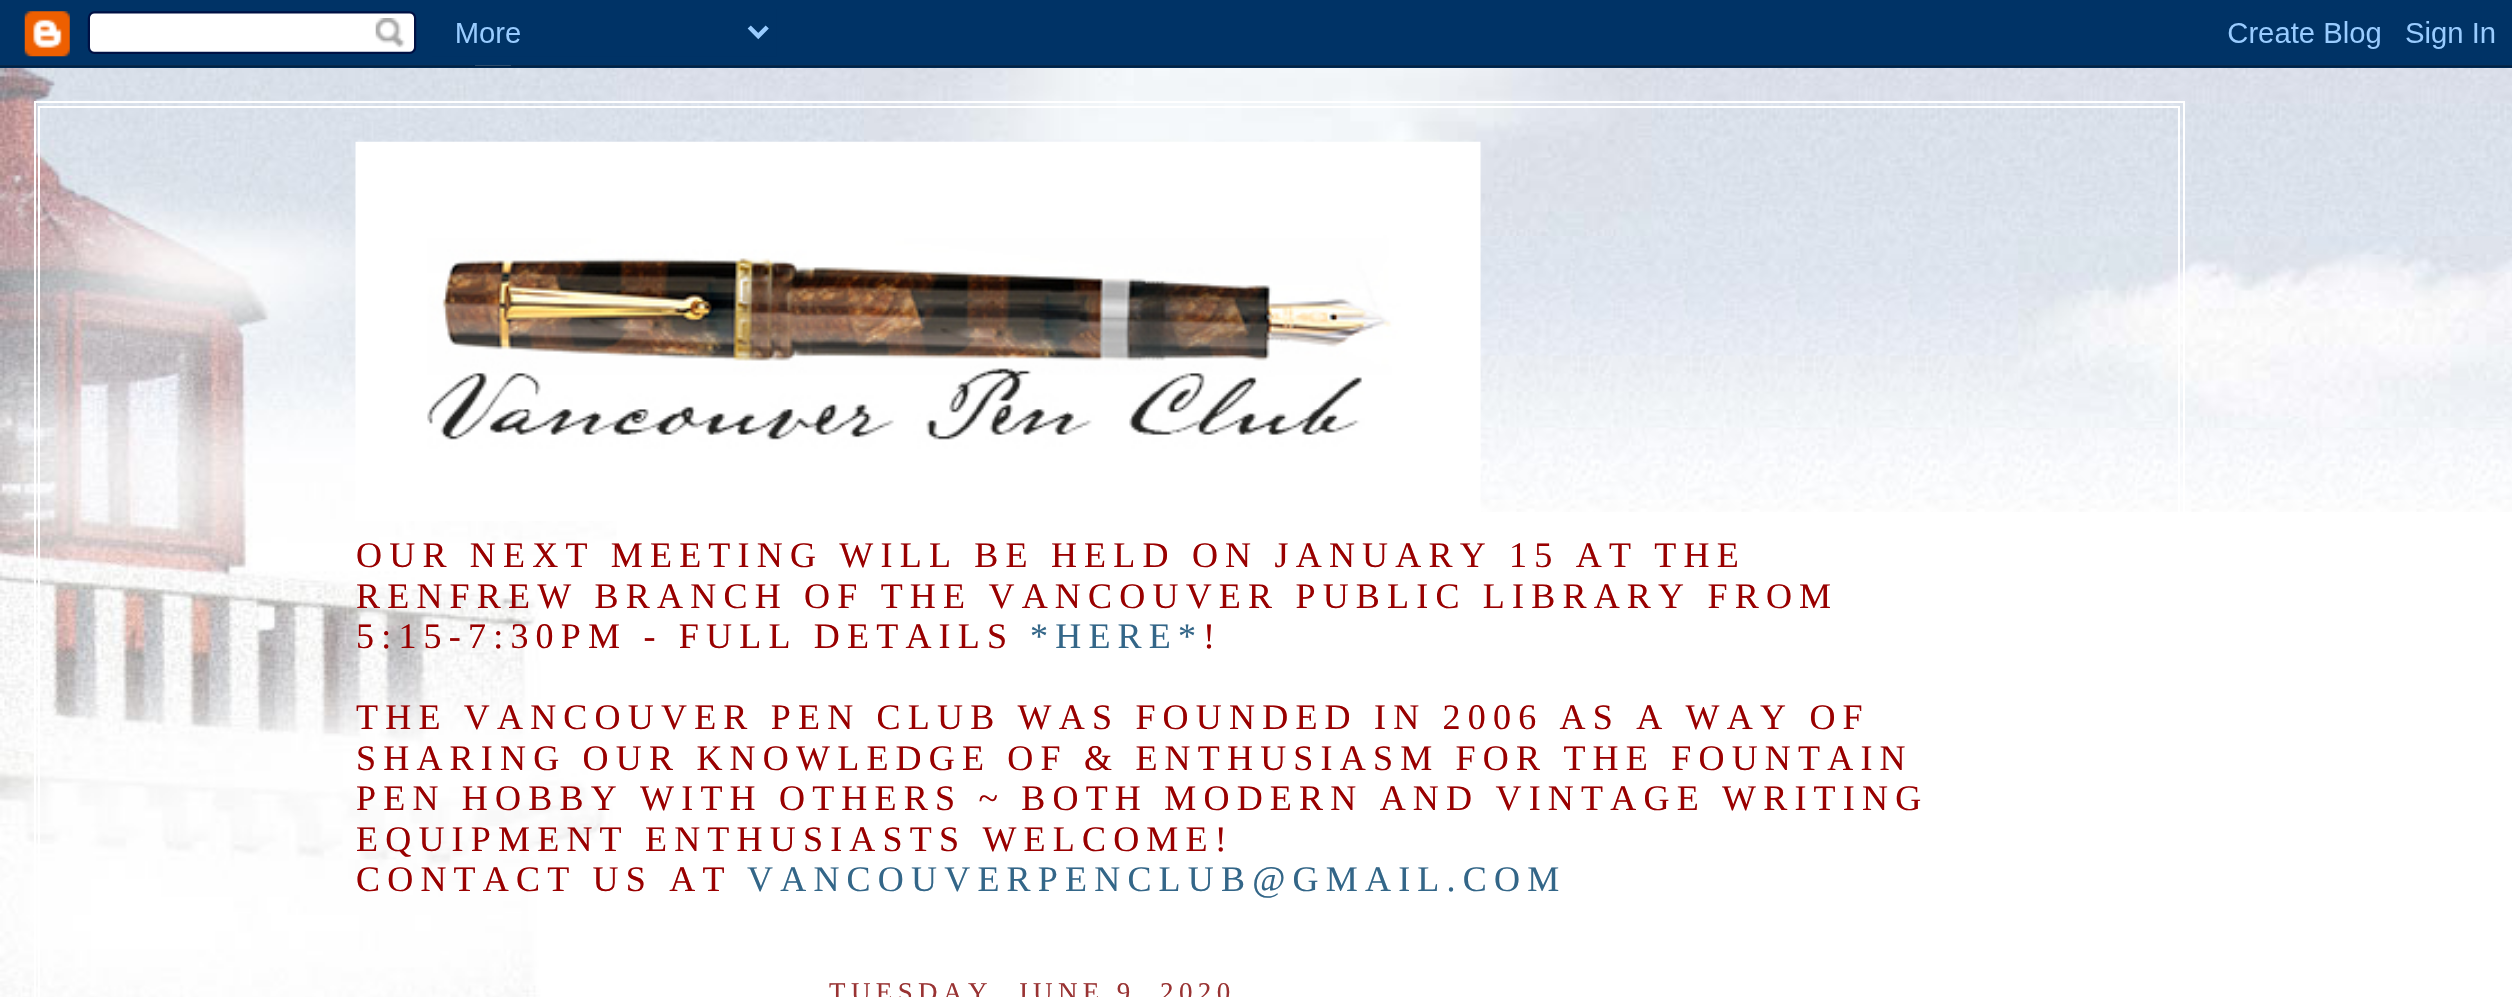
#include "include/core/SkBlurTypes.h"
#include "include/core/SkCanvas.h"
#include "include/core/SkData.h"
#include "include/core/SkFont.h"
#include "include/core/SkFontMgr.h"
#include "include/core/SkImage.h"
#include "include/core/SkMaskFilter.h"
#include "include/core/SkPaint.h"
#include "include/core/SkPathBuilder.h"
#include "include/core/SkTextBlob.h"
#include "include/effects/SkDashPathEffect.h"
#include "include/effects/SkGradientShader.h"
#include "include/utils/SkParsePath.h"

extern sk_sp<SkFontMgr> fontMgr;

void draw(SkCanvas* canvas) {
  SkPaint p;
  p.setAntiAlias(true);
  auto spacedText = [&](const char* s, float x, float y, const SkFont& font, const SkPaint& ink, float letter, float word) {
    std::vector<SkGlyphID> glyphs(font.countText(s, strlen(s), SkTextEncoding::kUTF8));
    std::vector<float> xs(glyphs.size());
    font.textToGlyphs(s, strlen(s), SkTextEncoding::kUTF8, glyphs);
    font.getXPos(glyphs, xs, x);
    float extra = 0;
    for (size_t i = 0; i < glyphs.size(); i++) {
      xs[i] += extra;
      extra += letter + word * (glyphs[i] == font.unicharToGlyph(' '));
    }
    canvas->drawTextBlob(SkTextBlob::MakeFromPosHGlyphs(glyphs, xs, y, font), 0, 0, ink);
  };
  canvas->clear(SK_ColorWHITE);
  canvas->drawImageRect(SkImages::DeferredFromEncodedData(SkData::MakeFromFileName("images/1.png")), SkRect::MakeLTRB(0, 0, 2512, 68), SkSamplingOptions());
  canvas->drawImageRect(SkImages::DeferredFromEncodedData(SkData::MakeFromFileName("images/2.png")), SkRect::MakeLTRB(616, 68, 2512, 512), SkSamplingOptions());
  canvas->drawImageRect(SkImages::DeferredFromEncodedData(SkData::MakeFromFileName("images/3.png")), SkRect::MakeLTRB(0, 68, 617, 997), SkSamplingOptions());
  canvas->drawImageRect(SkImages::DeferredFromEncodedData(SkData::MakeFromFileName("images/4.png")), SkRect::MakeLTRB(2018, 236, 2512, 428), SkSamplingOptions());
  canvas->drawImageRect(SkImages::DeferredFromEncodedData(SkData::MakeFromFileName("images/5.png")), SkRect::MakeLTRB(864, 68, 1652, 236), SkSamplingOptions());
  p.setStyle(SkPaint::kStroke_Style);
  p.setStrokeWidth(2);
  p.setColor(SK_ColorWHITE);
  canvas->drawRect(SkRect::MakeLTRB(35, 102, 2184, 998), p);
  canvas->drawRect(SkRect::MakeLTRB(39, 107, 2179, 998), p);
  canvas->drawImageRect(SkImages::DeferredFromEncodedData(SkData::MakeFromFileName("images/6.png")), SkRect::MakeLTRB(355, 141, 1481, 521), SkSamplingOptions());
  SkFont font1(fontMgr->matchFamilyStyle("Liberation Serif", SkFontStyle::Normal()), 36);
  font1.setSubpixel(true);
  p.setStyle(SkPaint::kFill_Style);
  p.setColor(SkColorSetRGB(153, 0, 0));
  spacedText("OUR NEXT MEETING WILL BE HELD ON JANUARY 15 AT THE", 356, 567, font1, p, 7.2f, 0);
  spacedText("RENFREW BRANCH OF THE VANCOUVER PUBLIC LIBRARY FROM", 356, 608, font1, p, 7.2f, 0);
  spacedText("5:15-7:30PM - FULL DETAILS", 356, 648, font1, p, 7.2f, 0);
  p.setColor(SkColorSetRGB(51, 102, 136));
  spacedText("*HERE*", 1030, 648, font1, p, 7.2f, 0);
  p.setColor(SkColorSetRGB(153, 0, 0));
  spacedText("!", 1203, 648, font1, p, 7.2f, 0);
  spacedText("THE VANCOUVER PEN CLUB WAS FOUNDED IN 2006 AS A WAY OF", 356, 729, font1, p, 7.2f, 0);
  spacedText("SHARING OUR KNOWLEDGE OF & ENTHUSIASM FOR THE FOUNTAIN", 356, 770, font1, p, 7.2f, 0);
  spacedText("PEN HOBBY WITH OTHERS ~ BOTH MODERN AND VINTAGE WRITING", 356, 810, font1, p, 7.2f, 0);
  spacedText("EQUIPMENT ENTHUSIASTS WELCOME!", 356, 851, font1, p, 7.2f, 0);
  spacedText("CONTACT US AT", 356, 891, font1, p, 7.2f, 0);
  p.setColor(SkColorSetRGB(51, 102, 136));
  spacedText("VANCOUVERPENCLUB@GMAIL.COM", 747, 891, font1, p, 7.2f, 0);
  SkFont font2(fontMgr->matchFamilyStyle("Liberation Serif", SkFontStyle::Normal()), 27);
  font2.setSubpixel(true);
  p.setColor(SkColorSetRGB(153, 51, 51));
  spacedText("TUESDAY, JUNE 9, 2020", 829, 1001, font2, p, 5.4f, 0);
}
